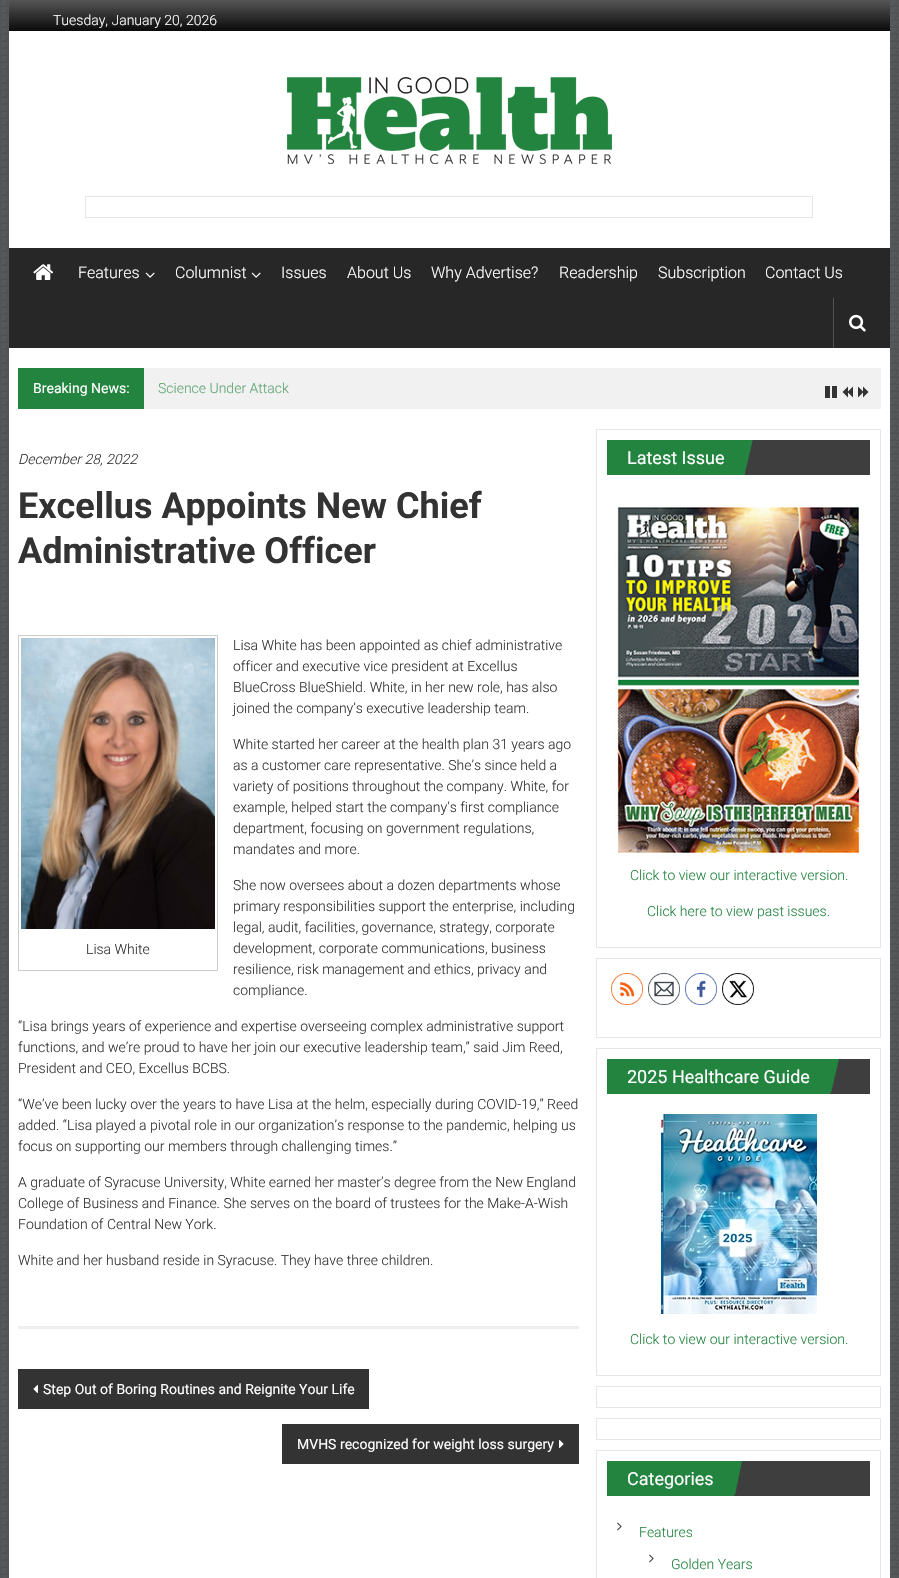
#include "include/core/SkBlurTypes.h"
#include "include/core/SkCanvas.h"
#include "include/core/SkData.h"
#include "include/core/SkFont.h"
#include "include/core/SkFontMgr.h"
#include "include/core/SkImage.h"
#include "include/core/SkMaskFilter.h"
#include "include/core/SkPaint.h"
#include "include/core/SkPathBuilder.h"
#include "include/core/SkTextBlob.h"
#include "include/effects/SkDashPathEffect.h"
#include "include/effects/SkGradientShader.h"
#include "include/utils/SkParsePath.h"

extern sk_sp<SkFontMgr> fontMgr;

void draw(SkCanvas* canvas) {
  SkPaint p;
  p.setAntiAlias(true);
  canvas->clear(SK_ColorWHITE);
  canvas->drawImageRect(SkImages::DeferredFromEncodedData(SkData::MakeFromFileName("images/1.png")), SkRect::MakeLTRB(0, 0, 899, 1578), SkSamplingOptions());
  p.setColor(SK_ColorWHITE);
  canvas->drawRect(SkRect::MakeLTRB(9, 31, 890, 1578), p);
  {
    const SkColor colors[] = {SkColorSetRGB(86, 86, 86), SkColorSetRGB(10, 10, 10)};
    const float stops[] = {0, 1};
    const SkPoint ends[] = {{450, 0}, {450, 31}};
    p.setShader(SkGradientShader::MakeLinear(ends, colors, stops, 2, SkTileMode::kClamp));
    p.setAlpha(255);
  }
  canvas->drawRect(SkRect::MakeLTRB(9, 0, 890, 31), p);
  canvas->drawImageRect(SkImages::DeferredFromEncodedData(SkData::MakeFromFileName("images/2.png")), SkRect::MakeLTRB(287, 77, 612, 164), SkSamplingOptions());
  p.setStyle(SkPaint::kStroke_Style);
  p.setStrokeWidth(1);
  p.setShader(nullptr);
  p.setColor(SkColorSetRGB(230, 230, 230));
  canvas->drawRect(SkRect::MakeLTRB(85.5f, 196.5f, 812.5f, 217.5f), p);
  p.setStyle(SkPaint::kFill_Style);
  p.setColor(SkColorSetRGB(39, 39, 39));
  canvas->drawRect(SkRect::MakeLTRB(9, 248, 890, 348), p);
  canvas->drawImageRect(SkImages::DeferredFromEncodedData(SkData::MakeFromFileName("images/3.png")), SkRect::MakeLTRB(33, 264, 54, 280), SkSamplingOptions());
  canvas->drawImageRect(SkImages::DeferredFromEncodedData(SkData::MakeFromFileName("images/4.png")), SkRect::MakeLTRB(145, 272, 155, 278), SkSamplingOptions());
  canvas->drawImageRect(SkImages::DeferredFromEncodedData(SkData::MakeFromFileName("images/4.png")), SkRect::MakeLTRB(251, 272, 261, 278), SkSamplingOptions());
  p.setColor(SkColorSetRGB(82, 82, 82));
  canvas->drawRect(SkRect::MakeLTRB(833, 298, 834, 348), p);
  canvas->drawImageRect(SkImages::DeferredFromEncodedData(SkData::MakeFromFileName("images/5.png")), SkRect::MakeLTRB(849, 314, 866, 332), SkSamplingOptions());
  p.setColor(SkColorSetRGB(241, 241, 241));
  canvas->drawRect(SkRect::MakeLTRB(144, 368, 881, 409), p);
  p.setColor(SkColorSetRGB(35, 132, 64));
  canvas->drawRect(SkRect::MakeLTRB(18, 368, 144, 409), p);
  canvas->drawImageRect(SkImages::DeferredFromEncodedData(SkData::MakeFromFileName("images/6.png")), SkRect::MakeLTRB(825, 386, 837, 398), SkSamplingOptions());
  canvas->drawImageRect(SkImages::DeferredFromEncodedData(SkData::MakeFromFileName("images/7.png")), SkRect::MakeLTRB(842, 386, 853, 398), SkSamplingOptions());
  canvas->drawImageRect(SkImages::DeferredFromEncodedData(SkData::MakeFromFileName("images/8.png")), SkRect::MakeLTRB(858, 386, 869, 398), SkSamplingOptions());
  p.setColor(SkColorSetRGB(238, 238, 238));
  canvas->drawRect(SkRect::MakeLTRB(18, 1326, 579, 1329), p);
  p.setStyle(SkPaint::kStroke_Style);
  p.setColor(SkColorSetRGB(204, 204, 204));
  canvas->drawRect(SkRect::MakeLTRB(18.5f, 635.5f, 217.5f, 970.5f), p);
  canvas->drawImageRect(SkImages::DeferredFromEncodedData(SkData::MakeFromFileName("images/9.png")), SkRect::MakeLTRB(21, 638, 215, 929), SkSamplingOptions());
  p.setStyle(SkPaint::kFill_Style);
  p.setColor(SkColorSetRGB(51, 51, 51));
  canvas->drawRect(SkRect::MakeLTRB(18, 1369, 369, 1409), p);
  canvas->drawImageRect(SkImages::DeferredFromEncodedData(SkData::MakeFromFileName("images/10.png")), SkRect::MakeLTRB(33, 1385, 38, 1393), SkSamplingOptions());
  canvas->drawRect(SkRect::MakeLTRB(282, 1424, 579, 1464), p);
  canvas->drawImageRect(SkImages::DeferredFromEncodedData(SkData::MakeFromFileName("images/11.png")), SkRect::MakeLTRB(559, 1440, 564, 1448), SkSamplingOptions());
  p.setStyle(SkPaint::kStroke_Style);
  p.setColor(SkColorSetRGB(230, 230, 230));
  canvas->drawRect(SkRect::MakeLTRB(596.5f, 429.5f, 880.5f, 947.5f), p);
  p.setStyle(SkPaint::kFill_Style);
  p.setColor(SkColorSetRGB(62, 62, 62));
  canvas->drawRect(SkRect::MakeLTRB(745, 440, 870, 475), p);
  p.setColor(SkColorSetRGB(35, 132, 64));
  canvas->drawRect(SkRect::MakeLTRB(607, 440, 745, 475), p);
  canvas->save();
  canvas->clipRect(SkRect::MakeLTRB(607, 440, 870, 475));
  canvas->drawPath(SkPathBuilder().moveTo(753, 439).lineTo(745, 473).lineTo(711, 466).lineTo(719, 432).close().detach(), p);
  canvas->restore();
  canvas->drawImageRect(SkImages::DeferredFromEncodedData(SkData::MakeFromFileName("images/12.png")), SkRect::MakeLTRB(614, 502, 861, 858), SkSamplingOptions());
  p.setStyle(SkPaint::kStroke_Style);
  p.setColor(SkColorSetRGB(230, 230, 230));
  canvas->drawRect(SkRect::MakeLTRB(596.5f, 958.5f, 880.5f, 1037.5f), p);
  canvas->drawImageRect(SkImages::DeferredFromEncodedData(SkData::MakeFromFileName("images/13.png")), SkRect::MakeLTRB(611, 973, 643, 1005), SkSamplingOptions());
  canvas->drawImageRect(SkImages::DeferredFromEncodedData(SkData::MakeFromFileName("images/14.png")), SkRect::MakeLTRB(648, 973, 680, 1005), SkSamplingOptions());
  canvas->drawImageRect(SkImages::DeferredFromEncodedData(SkData::MakeFromFileName("images/15.png")), SkRect::MakeLTRB(685, 973, 717, 1005), SkSamplingOptions());
  canvas->drawImageRect(SkImages::DeferredFromEncodedData(SkData::MakeFromFileName("images/16.png")), SkRect::MakeLTRB(722, 973, 754, 1005), SkSamplingOptions());
  canvas->drawRect(SkRect::MakeLTRB(596.5f, 1048.5f, 880.5f, 1375.5f), p);
  p.setStyle(SkPaint::kFill_Style);
  p.setColor(SkColorSetRGB(62, 62, 62));
  canvas->drawRect(SkRect::MakeLTRB(830, 1059, 870, 1094), p);
  p.setColor(SkColorSetRGB(35, 132, 64));
  canvas->drawRect(SkRect::MakeLTRB(607, 1059, 830, 1094), p);
  canvas->save();
  canvas->clipRect(SkRect::MakeLTRB(607, 1059, 870, 1094));
  canvas->drawPath(SkPathBuilder().moveTo(839, 1059).lineTo(831, 1093).lineTo(797, 1085).lineTo(805, 1051).close().detach(), p);
  canvas->restore();
  canvas->drawImageRect(SkImages::DeferredFromEncodedData(SkData::MakeFromFileName("images/17.png")), SkRect::MakeLTRB(661, 1114, 817, 1314), SkSamplingOptions());
  p.setStyle(SkPaint::kStroke_Style);
  p.setColor(SkColorSetRGB(230, 230, 230));
  canvas->drawRect(SkRect::MakeLTRB(596.5f, 1386.5f, 880.5f, 1407.5f), p);
  canvas->drawRect(SkRect::MakeLTRB(596.5f, 1418.5f, 880.5f, 1439.5f), p);
  canvas->drawRect(SkRect::MakeLTRB(596.5f, 1450.5f, 880.5f, 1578.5f), p);
  p.setStyle(SkPaint::kFill_Style);
  p.setColor(SkColorSetRGB(62, 62, 62));
  canvas->drawRect(SkRect::MakeLTRB(734, 1461, 870, 1496), p);
  p.setColor(SkColorSetRGB(35, 132, 64));
  canvas->drawRect(SkRect::MakeLTRB(607, 1461, 734, 1496), p);
  canvas->save();
  canvas->clipRect(SkRect::MakeLTRB(607, 1461, 870, 1496));
  canvas->drawPath(SkPathBuilder().moveTo(742, 1461).lineTo(735, 1495).lineTo(700, 1487).lineTo(708, 1453).close().detach(), p);
  canvas->restore();
  canvas->drawImageRect(SkImages::DeferredFromEncodedData(SkData::MakeFromFileName("images/18.png")), SkRect::MakeLTRB(617, 1522, 622, 1531), SkSamplingOptions());
  canvas->drawImageRect(SkImages::DeferredFromEncodedData(SkData::MakeFromFileName("images/18.png")), SkRect::MakeLTRB(649, 1554, 654, 1563), SkSamplingOptions());
  SkFont font1(fontMgr->matchFamilyStyle("Roboto", SkFontStyle(300, SkFontStyle::kNormal_Width, SkFontStyle::kUpright_Slant)), 14);
  font1.setSubpixel(true);
  p.setColor(SK_ColorWHITE);
  canvas->drawString("Tuesday, January 20, 2026", 53, 25, font1, p);
  SkFont font2(fontMgr->matchFamilyStyle("Roboto", SkFontStyle(300, SkFontStyle::kNormal_Width, SkFontStyle::kUpright_Slant)), 16);
  font2.setSubpixel(true);
  canvas->drawString("Features", 78, 278, font2, p);
  canvas->drawString("Columnist", 175, 278, font2, p);
  canvas->drawString("Issues", 281, 278, font2, p);
  canvas->drawString("About Us", 347, 278, font2, p);
  canvas->drawString("Why Advertise?", 431, 278, font2, p);
  canvas->drawString("Readership", 559, 278, font2, p);
  canvas->drawString("Subscription", 658, 278, font2, p);
  canvas->drawString("Contact Us", 765, 278, font2, p);
  SkFont font3(fontMgr->matchFamilyStyle("Roboto", SkFontStyle::Normal()), 14);
  font3.setSubpixel(true);
  canvas->drawString("Breaking News:", 33, 393, font3, p);
  p.setColor(SkColorSetRGB(98, 165, 118));
  canvas->drawString("Science Under Attack", 158, 393, font1, p);
  SkFont font4(fontMgr->matchFamilyStyle("Roboto", SkFontStyle(300, SkFontStyle::kNormal_Width, SkFontStyle::kItalic_Slant)), 14);
  font4.setSubpixel(true);
  p.setColor(SkColorSetRGB(51, 51, 51));
  canvas->drawString("December 28, 2022", 18, 464, font4, p);
  SkFont font5(fontMgr->matchFamilyStyle("Roboto", SkFontStyle::Bold()), 36);
  font5.setSubpixel(true);
  canvas->drawString("Excellus Appoints New Chief", 18, 518, font5, p);
  canvas->drawString("Administrative Officer", 18, 563, font5, p);
  canvas->drawString("Lisa White has been appointed as chief administrative", 233, 650, font1, p);
  canvas->drawString("officer and executive vice president at Excellus", 233, 671, font1, p);
  canvas->drawString("BlueCross BlueShield. White, in her new role, has also", 233, 692, font1, p);
  canvas->drawString("joined the company’s executive leadership team.", 233, 713, font1, p);
  canvas->drawString("White started her career at the health plan 31 years ago", 233, 749, font1, p);
  canvas->drawString("as a customer care representative. She’s since held a", 233, 770, font1, p);
  canvas->drawString("variety of positions throughout the company. White, for", 233, 791, font1, p);
  canvas->drawString("example, helped start the company’s first compliance", 233, 812, font1, p);
  canvas->drawString("department, focusing on government regulations,", 233, 833, font1, p);
  canvas->drawString("mandates and more.", 233, 854, font1, p);
  canvas->drawString("Lisa White", 86, 954, font1, p);
  canvas->drawString("She now oversees about a dozen departments whose", 233, 890, font1, p);
  canvas->drawString("primary responsibilities support the enterprise, including", 233, 911, font1, p);
  canvas->drawString("legal, audit, facilities, governance, strategy, corporate", 233, 932, font1, p);
  canvas->drawString("development, corporate communications, business", 233, 953, font1, p);
  canvas->drawString("resilience, risk management and ethics, privacy and", 233, 974, font1, p);
  canvas->drawString("compliance.", 233, 995, font1, p);
  canvas->drawString("“Lisa brings years of experience and expertise overseeing complex administrative support", 18, 1031, font1, p);
  canvas->drawString("functions, and we’re proud to have her join our executive leadership team,” said Jim Reed,", 18, 1052, font1, p);
  canvas->drawString("President and CEO, Excellus BCBS.", 18, 1073, font1, p);
  canvas->drawString("“We’ve been lucky over the years to have Lisa at the helm, especially during COVID-19,” Reed", 18, 1109, font1, p);
  canvas->drawString("added. “Lisa played a pivotal role in our organization’s response to the pandemic, helping us", 18, 1130, font1, p);
  canvas->drawString("focus on supporting our members through challenging times.”", 18, 1151, font1, p);
  canvas->drawString("A graduate of Syracuse University, White earned her master’s degree from the New England", 18, 1187, font1, p);
  canvas->drawString("College of Business and Finance. She serves on the board of trustees for the Make-A-Wish", 18, 1208, font1, p);
  canvas->drawString("Foundation of Central New York.", 18, 1229, font1, p);
  canvas->drawString("White and her husband reside in Syracuse. They have three children.", 18, 1265, font1, p);
  p.setColor(SK_ColorWHITE);
  canvas->drawString("Step Out of Boring Routines and Reignite Your Life", 43, 1394, font3, p);
  canvas->drawString("MVHS recognized for weight loss surgery", 297, 1449, font3, p);
  SkFont font6(fontMgr->matchFamilyStyle("Roboto", SkFontStyle::Normal()), 18);
  font6.setSubpixel(true);
  canvas->drawString("Latest Issue", 627, 464, font6, p);
  p.setColor(SkColorSetRGB(35, 132, 64));
  canvas->drawString("Click to view our interactive version.", 630, 880, font1, p);
  canvas->drawString("Click here to view past issues.", 647, 916, font1, p);
  p.setColor(SK_ColorWHITE);
  canvas->drawString("2025 Healthcare Guide", 627, 1083, font6, p);
  p.setColor(SkColorSetRGB(35, 132, 64));
  canvas->drawString("Click to view our interactive version.", 630, 1344, font1, p);
  p.setColor(SK_ColorWHITE);
  canvas->drawString("Categories", 627, 1485, font6, p);
  p.setColor(SkColorSetRGB(35, 132, 64));
  canvas->drawString("Features", 639, 1537, font1, p);
  canvas->drawString("Golden Years", 671, 1569, font1, p);
}
